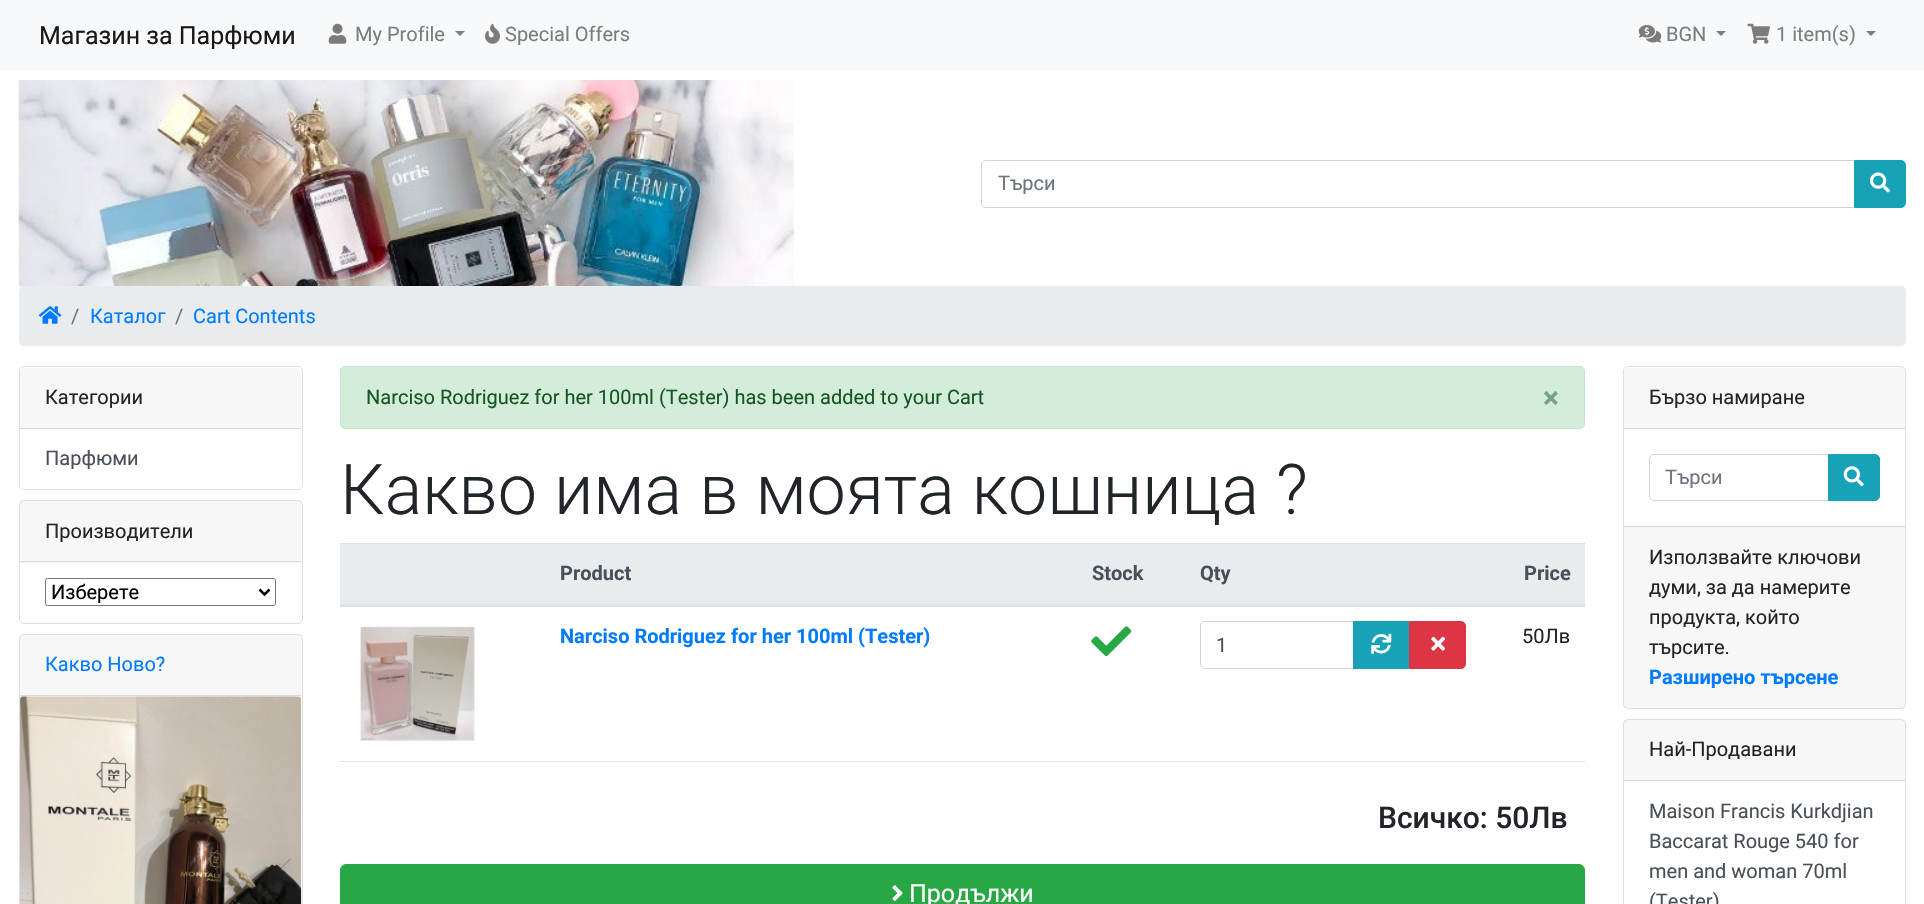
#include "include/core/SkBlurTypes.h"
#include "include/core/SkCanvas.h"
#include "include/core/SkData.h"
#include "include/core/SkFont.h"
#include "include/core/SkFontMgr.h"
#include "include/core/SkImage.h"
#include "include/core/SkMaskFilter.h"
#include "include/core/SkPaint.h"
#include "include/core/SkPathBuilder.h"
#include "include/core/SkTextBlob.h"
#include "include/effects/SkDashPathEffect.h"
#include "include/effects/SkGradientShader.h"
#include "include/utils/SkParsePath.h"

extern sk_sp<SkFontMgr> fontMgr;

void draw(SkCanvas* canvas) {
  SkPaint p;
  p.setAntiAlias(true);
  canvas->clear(SK_ColorWHITE);
  p.setColor(SkColorSetRGB(248, 249, 250));
  canvas->drawRect(SkRect::MakeLTRB(0, 0, 1924, 70), p);
  canvas->drawImageRect(SkImages::DeferredFromEncodedData(SkData::MakeFromFileName("images/1.png")), SkRect::MakeLTRB(328, 23, 347, 44), SkSamplingOptions());
  p.setColor(SkColorSetRGB(124, 125, 125));
  canvas->drawPath(SkPathBuilder().moveTo(455, 31).lineTo(465, 31).lineTo(460, 36).close().detach(), p);
  canvas->drawImageRect(SkImages::DeferredFromEncodedData(SkData::MakeFromFileName("images/2.png")), SkRect::MakeLTRB(485, 23, 500, 44), SkSamplingOptions());
  canvas->drawImageRect(SkImages::DeferredFromEncodedData(SkData::MakeFromFileName("images/3.png")), SkRect::MakeLTRB(1638, 25, 1662, 43), SkSamplingOptions());
  canvas->drawPath(SkPathBuilder().moveTo(1716, 31).lineTo(1726, 31).lineTo(1721, 36).close().detach(), p);
  canvas->drawImageRect(SkImages::DeferredFromEncodedData(SkData::MakeFromFileName("images/4.png")), SkRect::MakeLTRB(1747, 23, 1770, 44), SkSamplingOptions());
  canvas->drawPath(SkPathBuilder().moveTo(1866, 31).lineTo(1876, 31).lineTo(1871, 36).close().detach(), p);
  canvas->drawImageRect(SkImages::DeferredFromEncodedData(SkData::MakeFromFileName("images/5.png")), SkRect::MakeLTRB(18, 80, 794, 287), SkSamplingOptions());
  p.setStyle(SkPaint::kStroke_Style);
  p.setStrokeWidth(1);
  p.setColor(SkColorSetRGB(206, 212, 218));
  canvas->drawPath(SkPathBuilder().moveTo(986, 160.5f).lineTo(1854.5f, 160.5f).lineTo(1854.5f, 207.5f).lineTo(986, 207.5f).cubicTo(983.5f, 207.5f, 981.5f, 205.5f, 981.5f, 203).lineTo(981.5f, 165).cubicTo(981.5f, 162.5f, 983.5f, 160.5f, 986, 160.5f).close().detach(), p);
  p.setStyle(SkPaint::kFill_Style);
  p.setColor(SkColorSetRGB(23, 162, 184));
  canvas->drawPath(SkPathBuilder().moveTo(1854.5f, 160.5f).lineTo(1901, 160.5f).cubicTo(1903.5f, 160.5f, 1905.5f, 162.5f, 1905.5f, 165).lineTo(1905.5f, 203).cubicTo(1905.5f, 205.5f, 1903.5f, 207.5f, 1901, 207.5f).lineTo(1854.5f, 207.5f).close().detach(), p);
  p.setStyle(SkPaint::kStroke_Style);
  canvas->drawPath(SkPathBuilder().moveTo(1854.5f, 160.5f).lineTo(1901, 160.5f).cubicTo(1903.5f, 160.5f, 1905.5f, 162.5f, 1905.5f, 165).lineTo(1905.5f, 203).cubicTo(1905.5f, 205.5f, 1903.5f, 207.5f, 1901, 207.5f).lineTo(1854.5f, 207.5f).close().detach(), p);
  canvas->drawImageRect(SkImages::DeferredFromEncodedData(SkData::MakeFromFileName("images/6.png")), SkRect::MakeLTRB(1870, 172, 1890, 193), SkSamplingOptions());
  p.setStyle(SkPaint::kFill_Style);
  p.setColor(SkColorSetRGB(233, 236, 239));
  canvas->drawRoundRect(SkRect::MakeLTRB(19, 286, 1906, 346), 5, 5, p);
  canvas->drawImageRect(SkImages::DeferredFromEncodedData(SkData::MakeFromFileName("images/7.png")), SkRect::MakeLTRB(38, 306, 62, 324), SkSamplingOptions());
  p.setStyle(SkPaint::kStroke_Style);
  p.setColor(SkColorSetRGB(223, 223, 223));
  canvas->drawRoundRect(SkRect::MakeLTRB(19.5f, 366.5f, 302.5f, 489.5f), 4.5f, 4.5f, p);
  p.setStyle(SkPaint::kFill_Style);
  p.setColor(SkColorSetRGB(247, 247, 247));
  canvas->drawPath(SkPathBuilder().moveTo(24, 368).lineTo(297, 368).cubicTo(299, 368, 301, 370, 301, 372).lineTo(301, 429).lineTo(20, 429).lineTo(20, 372).cubicTo(20, 370, 22, 368, 24, 368).close().detach(), p);
  p.setColor(SkColorSetRGB(216, 216, 216));
  canvas->drawRect(SkRect::MakeLTRB(20, 428, 301, 429), p);
  p.setColor(SK_ColorWHITE);
  canvas->drawPath(SkPathBuilder().moveTo(20, 429).lineTo(301, 429).lineTo(301, 485).cubicTo(301, 487, 299, 489, 297, 489).lineTo(24, 489).cubicTo(22, 489, 20, 487, 20, 485).close().detach(), p);
  p.setStyle(SkPaint::kStroke_Style);
  p.setColor(SkColorSetRGB(223, 223, 223));
  canvas->drawRoundRect(SkRect::MakeLTRB(19.5f, 500.5f, 302.5f, 623.5f), 4.5f, 4.5f, p);
  p.setStyle(SkPaint::kFill_Style);
  p.setColor(SkColorSetARGB(8, 0, 0, 0));
  canvas->drawRect(SkRect::MakeLTRB(20, 501, 301, 563), p);
  p.setColor(SkColorSetRGB(216, 216, 216));
  canvas->drawRect(SkRect::MakeLTRB(20, 561, 301, 562), p);
  p.setColor(SK_ColorWHITE);
  canvas->drawPath(SkPathBuilder().moveTo(20, 563).lineTo(301, 563).lineTo(301, 619).cubicTo(301, 621, 299, 623, 297, 623).lineTo(24, 623).cubicTo(22, 623, 20, 621, 20, 619).close().detach(), p);
  p.setStyle(SkPaint::kStroke_Style);
  p.setColor(SkColorSetRGB(118, 118, 118));
  canvas->drawRoundRect(SkRect::MakeLTRB(45.5f, 578.5f, 275.5f, 605.5f), 2, 2, p);
  p.setStrokeWidth(2.5f);
  p.setColor(SK_ColorBLACK);
  canvas->drawPath(SkPathBuilder().moveTo(259.5f, 589.5f).lineTo(264.5f, 594.5f).lineTo(269.5f, 589.5f).detach(), p);
  p.setStrokeWidth(1);
  p.setColor(SkColorSetRGB(223, 223, 223));
  canvas->drawRoundRect(SkRect::MakeLTRB(19.5f, 634.5f, 302.5f, 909.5f), 4.5f, 4.5f, p);
  p.setStyle(SkPaint::kFill_Style);
  p.setColor(SkColorSetARGB(8, 0, 0, 0));
  canvas->drawRect(SkRect::MakeLTRB(20, 635, 301, 695), p);
  p.setColor(SkColorSetRGB(216, 216, 216));
  canvas->drawRect(SkRect::MakeLTRB(20, 695, 301, 696), p);
  canvas->drawImageRect(SkImages::DeferredFromEncodedData(SkData::MakeFromFileName("images/8.png")), SkRect::MakeLTRB(20, 696, 302, 904), SkSamplingOptions());
  p.setColor(SkColorSetRGB(212, 237, 218));
  canvas->drawRoundRect(SkRect::MakeLTRB(340.5f, 366.5f, 1584.5f, 428.5f), 4.5f, 4.5f, p);
  p.setStyle(SkPaint::kStroke_Style);
  p.setColor(SkColorSetRGB(195, 230, 203));
  canvas->drawRoundRect(SkRect::MakeLTRB(340.5f, 366.5f, 1584.5f, 428.5f), 4.5f, 4.5f, p);
  p.setStyle(SkPaint::kFill_Style);
  p.setColor(SkColorSetRGB(233, 236, 239));
  canvas->drawRect(SkRect::MakeLTRB(340, 544, 1585, 604), p);
  p.setColor(SkColorSetRGB(222, 226, 230));
  canvas->drawRect(SkRect::MakeLTRB(340, 543, 1585, 544), p);
  canvas->drawRect(SkRect::MakeLTRB(340, 604, 1585, 607), p);
  canvas->drawImageRect(SkImages::DeferredFromEncodedData(SkData::MakeFromFileName("images/9.png")), SkRect::MakeLTRB(360, 626, 475, 741), SkSamplingOptions());
  canvas->drawImageRect(SkImages::DeferredFromEncodedData(SkData::MakeFromFileName("images/10.png")), SkRect::MakeLTRB(1091, 626, 1132, 657), SkSamplingOptions());
  p.setStyle(SkPaint::kStroke_Style);
  p.setColor(SkColorSetRGB(206, 212, 218));
  canvas->drawPath(SkPathBuilder().moveTo(1205, 621.5f).lineTo(1353.5f, 621.5f).lineTo(1353.5f, 668.5f).lineTo(1205, 668.5f).cubicTo(1202.5f, 668.5f, 1200.5f, 666.5f, 1200.5f, 664).lineTo(1200.5f, 626).cubicTo(1200.5f, 623.5f, 1202.5f, 621.5f, 1205, 621.5f).close().detach(), p);
  p.setStyle(SkPaint::kFill_Style);
  p.setColor(SkColorSetRGB(23, 162, 184));
  canvas->drawRect(SkRect::MakeLTRB(1353, 621, 1409, 669), p);
  canvas->drawImageRect(SkImages::DeferredFromEncodedData(SkData::MakeFromFileName("images/11.png")), SkRect::MakeLTRB(1371, 633, 1392, 654), SkSamplingOptions());
  p.setColor(SkColorSetRGB(220, 53, 69));
  canvas->drawPath(SkPathBuilder().moveTo(1409.5f, 621.5f).lineTo(1461, 621.5f).cubicTo(1463.5f, 621.5f, 1465.5f, 623.5f, 1465.5f, 626).lineTo(1465.5f, 664).cubicTo(1465.5f, 666.5f, 1463.5f, 668.5f, 1461, 668.5f).lineTo(1409.5f, 668.5f).close().detach(), p);
  p.setStyle(SkPaint::kStroke_Style);
  canvas->drawPath(SkPathBuilder().moveTo(1409.5f, 621.5f).lineTo(1461, 621.5f).cubicTo(1463.5f, 621.5f, 1465.5f, 623.5f, 1465.5f, 626).lineTo(1465.5f, 664).cubicTo(1465.5f, 666.5f, 1463.5f, 668.5f, 1461, 668.5f).lineTo(1409.5f, 668.5f).close().detach(), p);
  canvas->drawImageRect(SkImages::DeferredFromEncodedData(SkData::MakeFromFileName("images/12.png")), SkRect::MakeLTRB(1431, 636, 1445, 651), SkSamplingOptions());
  p.setStyle(SkPaint::kFill_Style);
  p.setColor(SkColorSetRGB(230, 230, 230));
  canvas->drawRect(SkRect::MakeLTRB(340, 761, 1585, 762), p);
  p.setColor(SkColorSetRGB(40, 167, 69));
  canvas->drawRoundRect(SkRect::MakeLTRB(340.5f, 864.5f, 1584.5f, 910.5f), 5.5f, 5.5f, p);
  p.setStyle(SkPaint::kStroke_Style);
  canvas->drawRoundRect(SkRect::MakeLTRB(340.5f, 864.5f, 1584.5f, 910.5f), 5.5f, 5.5f, p);
  canvas->drawImageRect(SkImages::DeferredFromEncodedData(SkData::MakeFromFileName("images/13.png")), SkRect::MakeLTRB(892, 885, 903, 901), SkSamplingOptions());
  p.setColor(SkColorSetRGB(223, 223, 223));
  canvas->drawRoundRect(SkRect::MakeLTRB(1623.5f, 366.5f, 1905.5f, 708.5f), 4.5f, 4.5f, p);
  p.setStyle(SkPaint::kFill_Style);
  p.setColor(SkColorSetRGB(247, 247, 247));
  canvas->drawPath(SkPathBuilder().moveTo(1628, 368).lineTo(1901, 368).cubicTo(1903, 368, 1905, 370, 1905, 372).lineTo(1905, 429).lineTo(1624, 429).lineTo(1624, 372).cubicTo(1624, 370, 1626, 368, 1628, 368).close().detach(), p);
  p.setColor(SkColorSetRGB(216, 216, 216));
  canvas->drawRect(SkRect::MakeLTRB(1624, 428, 1905, 429), p);
  p.setStyle(SkPaint::kStroke_Style);
  p.setColor(SkColorSetRGB(206, 212, 218));
  canvas->drawPath(SkPathBuilder().moveTo(1654, 454.5f).lineTo(1828.5f, 454.5f).lineTo(1828.5f, 500.5f).lineTo(1654, 500.5f).cubicTo(1651.5f, 500.5f, 1649.5f, 498.5f, 1649.5f, 496).lineTo(1649.5f, 459).cubicTo(1649.5f, 456.5f, 1651.5f, 454.5f, 1654, 454.5f).close().detach(), p);
  p.setStyle(SkPaint::kFill_Style);
  p.setColor(SkColorSetRGB(23, 162, 184));
  canvas->drawPath(SkPathBuilder().moveTo(1828.5f, 454.5f).lineTo(1875, 454.5f).cubicTo(1877.5f, 454.5f, 1879.5f, 456.5f, 1879.5f, 459).lineTo(1879.5f, 496).cubicTo(1879.5f, 498.5f, 1877.5f, 500.5f, 1875, 500.5f).lineTo(1828.5f, 500.5f).close().detach(), p);
  p.setStyle(SkPaint::kStroke_Style);
  canvas->drawPath(SkPathBuilder().moveTo(1828.5f, 454.5f).lineTo(1875, 454.5f).cubicTo(1877.5f, 454.5f, 1879.5f, 456.5f, 1879.5f, 459).lineTo(1879.5f, 496).cubicTo(1879.5f, 498.5f, 1877.5f, 500.5f, 1875, 500.5f).lineTo(1828.5f, 500.5f).close().detach(), p);
  canvas->drawImageRect(SkImages::DeferredFromEncodedData(SkData::MakeFromFileName("images/14.png")), SkRect::MakeLTRB(1843, 466, 1864, 487), SkSamplingOptions());
  p.setStyle(SkPaint::kFill_Style);
  p.setColor(SkColorSetARGB(8, 0, 0, 0));
  canvas->drawRect(SkRect::MakeLTRB(1624, 527, 1905, 708), p);
  p.setColor(SkColorSetRGB(216, 216, 216));
  canvas->drawRect(SkRect::MakeLTRB(1624, 526, 1905, 527), p);
  p.setStyle(SkPaint::kStroke_Style);
  p.setColor(SkColorSetRGB(223, 223, 223));
  canvas->drawRoundRect(SkRect::MakeLTRB(1623.5f, 719.5f, 1905.5f, 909.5f), 4.5f, 4.5f, p);
  p.setStyle(SkPaint::kFill_Style);
  p.setColor(SkColorSetARGB(8, 0, 0, 0));
  canvas->drawRect(SkRect::MakeLTRB(1624, 720, 1905, 780), p);
  p.setColor(SkColorSetRGB(216, 216, 216));
  canvas->drawRect(SkRect::MakeLTRB(1624, 780, 1905, 781), p);
  SkFont font1(fontMgr->matchFamilyStyle("Roboto", SkFontStyle::Normal()), 25);
  font1.setSubpixel(true);
  p.setColor(SkColorSetRGB(25, 25, 25));
  canvas->drawString("Магазин за Парфюми", 39, 44, font1, p);
  SkFont font2(fontMgr->matchFamilyStyle("Roboto", SkFontStyle::Normal()), 20);
  font2.setSubpixel(true);
  p.setColor(SkColorSetRGB(124, 125, 125));
  canvas->drawString("My Profile", 355, 41, font2, p);
  canvas->drawString("Special Offers", 505, 41, font2, p);
  canvas->drawString("BGN", 1666, 41, font2, p);
  canvas->drawString("1 item(s)", 1776, 41, font2, p);
  p.setColor(SkColorSetRGB(108, 117, 125));
  canvas->drawString("Търси", 998, 190, font2, p);
  canvas->drawString("/", 71, 323, font2, p);
  p.setColor(SkColorSetRGB(0, 123, 255));
  canvas->drawString("Каталог", 90, 323, font2, p);
  p.setColor(SkColorSetRGB(108, 117, 125));
  canvas->drawString("/", 175, 323, font2, p);
  p.setColor(SkColorSetRGB(0, 123, 255));
  canvas->drawString("Cart Contents", 193, 323, font2, p);
  p.setColor(SkColorSetRGB(33, 37, 41));
  canvas->drawString("Категории", 45, 404, font2, p);
  p.setColor(SkColorSetRGB(73, 80, 87));
  canvas->drawString("Парфюми", 45, 465, font2, p);
  p.setColor(SkColorSetRGB(33, 37, 41));
  canvas->drawString("Производители", 45, 538, font2, p);
  p.setColor(SK_ColorBLACK);
  canvas->drawString("Изберете", 51, 599, font2, p);
  p.setColor(SkColorSetRGB(0, 123, 255));
  canvas->drawString("Какво Ново?", 45, 671, font2, p);
  p.setColor(SkColorSetRGB(21, 87, 36));
  canvas->drawString("Narciso Rodriguez for her 100ml (Tester) has been added to your Cart", 366, 404, font2, p);
  SkFont font3(fontMgr->matchFamilyStyle("Roboto", SkFontStyle::Bold()), 30);
  font3.setSubpixel(true);
  p.setColor(SkColorSetRGB(117, 162, 127));
  canvas->drawString("×", 1543, 408, font3, p);
  SkFont font4(fontMgr->matchFamilyStyle("Roboto", SkFontStyle(300, SkFontStyle::kNormal_Width, SkFontStyle::kUpright_Slant)), 70);
  font4.setSubpixel(true);
  p.setColor(SkColorSetRGB(33, 37, 41));
  canvas->drawString("Какво има в моята кошница ?", 340, 514, font4, p);
  SkFont font5(fontMgr->matchFamilyStyle("Roboto", SkFontStyle::Bold()), 20);
  font5.setSubpixel(true);
  p.setColor(SkColorSetRGB(73, 80, 87));
  canvas->drawString("Product", 560, 580, font5, p);
  canvas->drawString("Stock", 1092, 580, font5, p);
  canvas->drawString("Qty", 1200, 580, font5, p);
  canvas->drawString("Price", 1524, 580, font5, p);
  p.setColor(SkColorSetRGB(0, 123, 255));
  canvas->drawString("Narciso Rodriguez for her 100ml (Tester)", 560, 643, font5, p);
  p.setColor(SkColorSetRGB(73, 80, 87));
  canvas->drawString("1", 1216, 652, font2, p);
  p.setColor(SkColorSetRGB(33, 37, 41));
  canvas->drawString("50Лв", 1522, 643, font2, p);
  SkFont font6(fontMgr->matchFamilyStyle("Roboto", SkFontStyle(500, SkFontStyle::kNormal_Width, SkFontStyle::kUpright_Slant)), 30);
  font6.setSubpixel(true);
  canvas->drawString("Всичко: 50Лв", 1378, 828, font6, p);
  p.setColor(SK_ColorWHITE);
  canvas->drawString("Продължи", 909, 902, font1, p);
  p.setColor(SkColorSetRGB(33, 37, 41));
  canvas->drawString("Бързо намиране", 1649, 404, font2, p);
  p.setColor(SkColorSetRGB(108, 117, 125));
  canvas->drawString("Търси", 1665, 484, font2, p);
  p.setColor(SkColorSetRGB(33, 37, 41));
  canvas->drawString("Използвайте ключови", 1649, 564, font2, p);
  canvas->drawString("думи, за да намерите", 1649, 594, font2, p);
  canvas->drawString("продукта, който", 1649, 624, font2, p);
  canvas->drawString("търсите.", 1649, 654, font2, p);
  p.setColor(SkColorSetRGB(0, 123, 255));
  canvas->drawString("Разширено търсене", 1649, 684, font5, p);
  p.setColor(SkColorSetRGB(33, 37, 41));
  canvas->drawString("Най-Продавани", 1649, 756, font2, p);
  p.setColor(SkColorSetRGB(73, 80, 87));
  canvas->drawString("Maison Francis Kurkdjian", 1649, 818, font2, p);
  canvas->drawString("Baccarat Rouge 540 for", 1649, 848, font2, p);
  canvas->drawString("men and woman 70ml", 1649, 878, font2, p);
  canvas->drawString("(Tester)", 1649, 908, font2, p);
}
